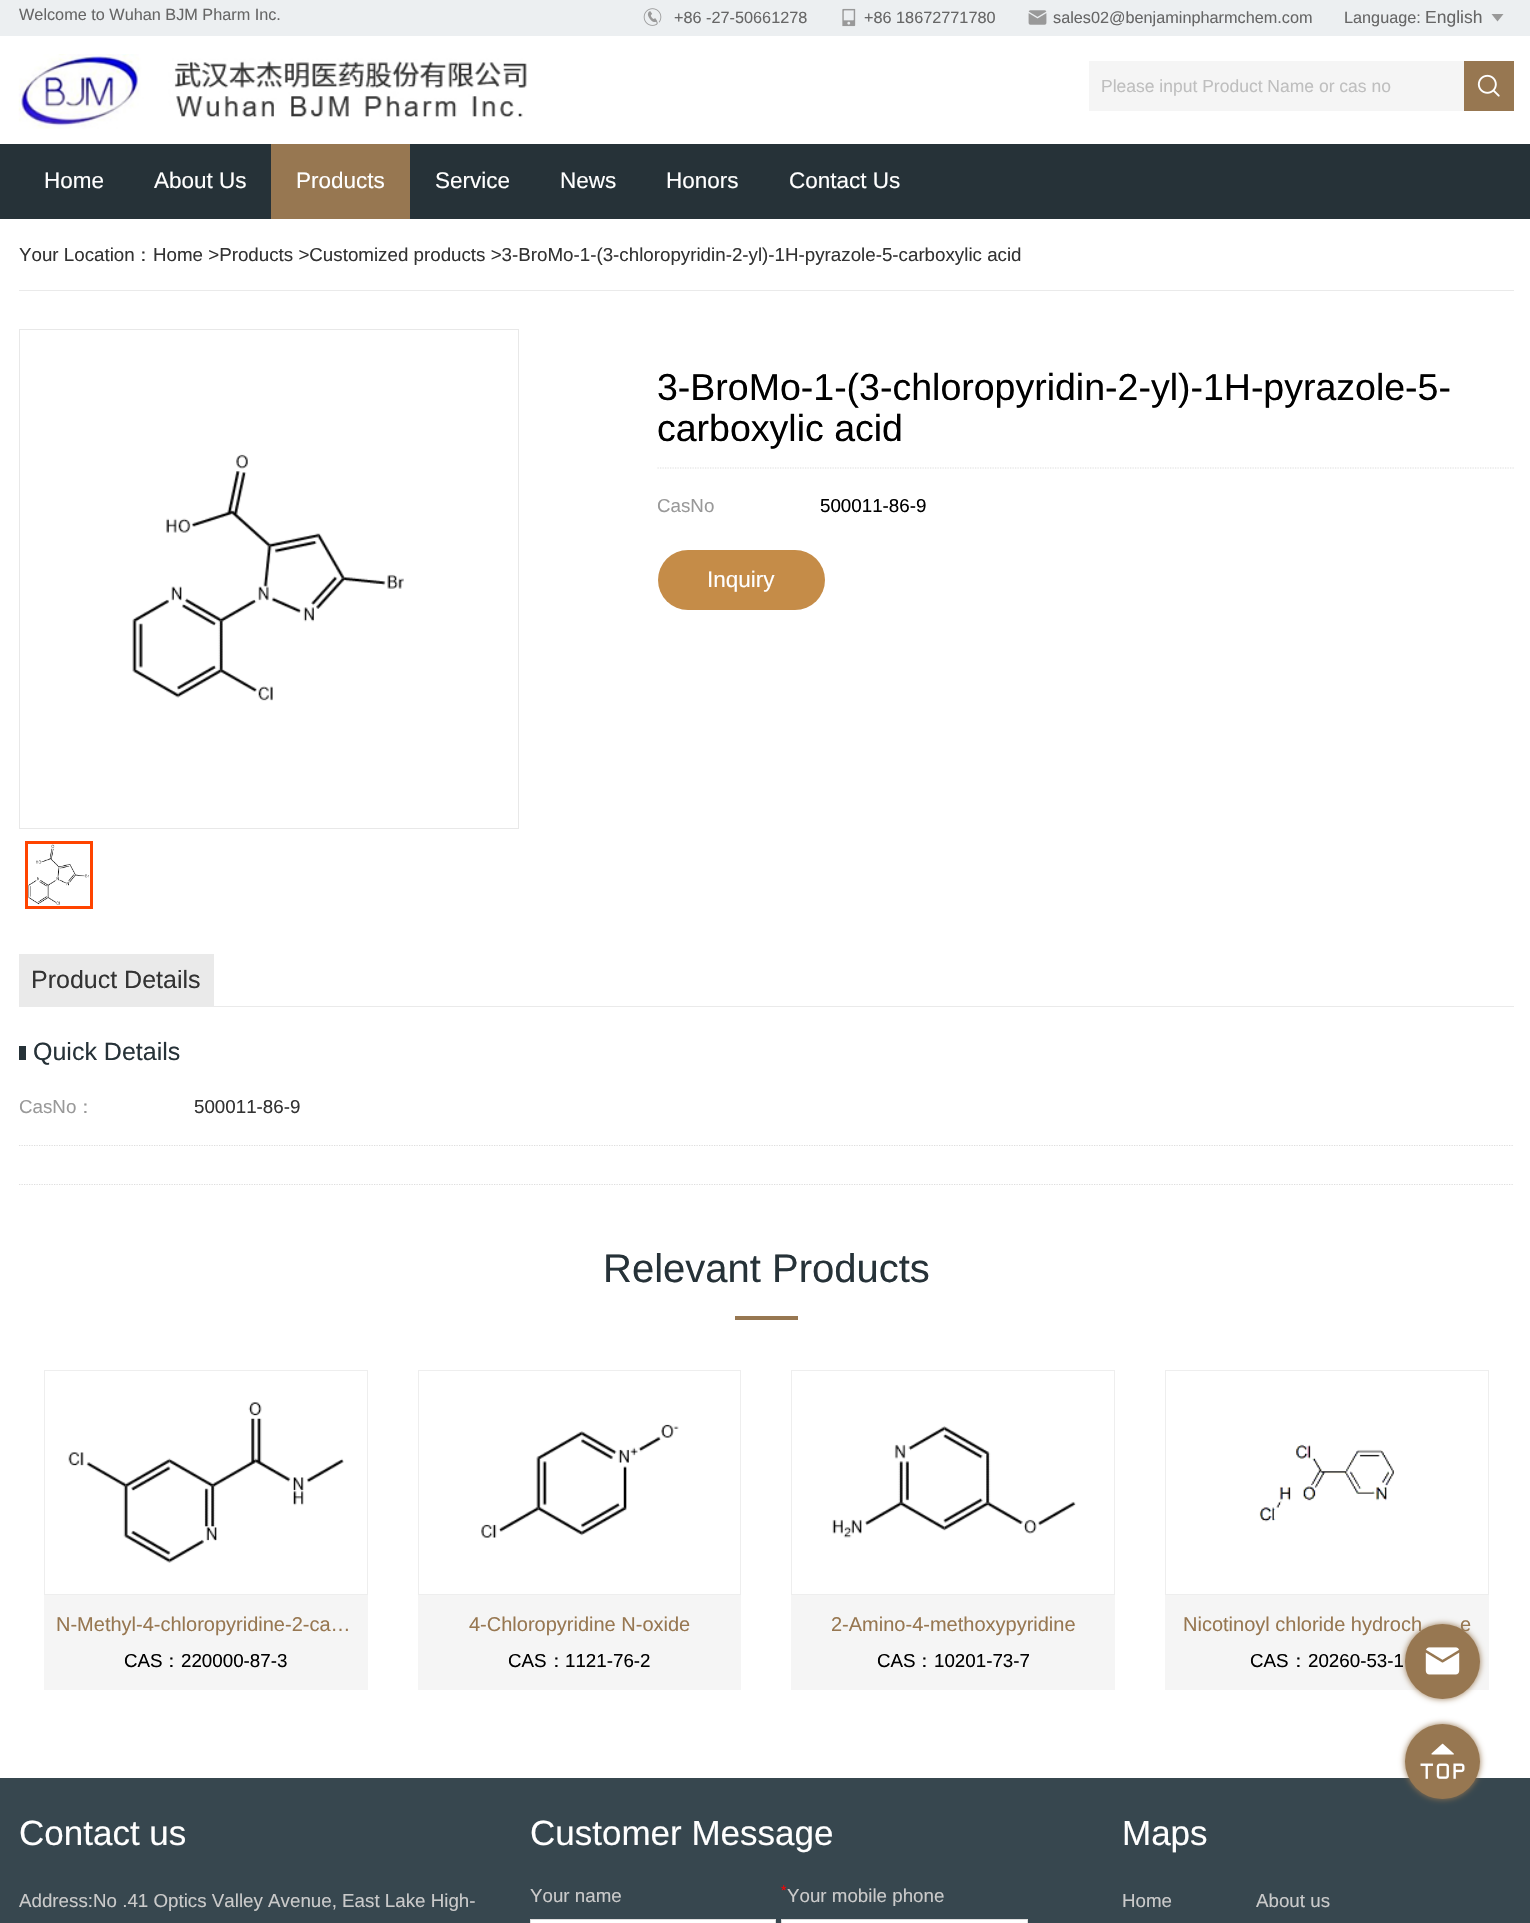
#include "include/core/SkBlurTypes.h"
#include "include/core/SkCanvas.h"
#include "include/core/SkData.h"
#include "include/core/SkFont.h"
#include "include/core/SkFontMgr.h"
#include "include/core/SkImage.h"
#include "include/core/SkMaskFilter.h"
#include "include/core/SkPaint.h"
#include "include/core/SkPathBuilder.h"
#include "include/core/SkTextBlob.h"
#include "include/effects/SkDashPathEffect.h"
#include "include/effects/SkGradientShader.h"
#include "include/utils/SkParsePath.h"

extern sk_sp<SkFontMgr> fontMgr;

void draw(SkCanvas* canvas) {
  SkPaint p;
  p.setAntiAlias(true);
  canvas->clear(SK_ColorWHITE);
  p.setColor(SkColorSetRGB(236, 239, 241));
  canvas->drawRect(SkRect::MakeLTRB(0, 0, 1530, 36), p);
  canvas->drawImageRect(SkImages::DeferredFromEncodedData(SkData::MakeFromFileName("images/1.png")), SkRect::MakeLTRB(643, 8, 662, 26), SkSamplingOptions());
  canvas->drawImageRect(SkImages::DeferredFromEncodedData(SkData::MakeFromFileName("images/2.png")), SkRect::MakeLTRB(842, 8, 856, 27), SkSamplingOptions());
  canvas->drawImageRect(SkImages::DeferredFromEncodedData(SkData::MakeFromFileName("images/3.png")), SkRect::MakeLTRB(1028, 10, 1047, 25), SkSamplingOptions());
  p.setColor(SkColorSetRGB(153, 153, 153));
  canvas->drawPath(SkPathBuilder().moveTo(1491.5f, 14).lineTo(1503.5f, 14).lineTo(1497.5f, 21.5f).close().detach(), p);
  canvas->drawImageRect(SkImages::DeferredFromEncodedData(SkData::MakeFromFileName("images/4.png")), SkRect::MakeLTRB(18, 54, 527, 129), SkSamplingOptions());
  p.setColor(SkColorSetRGB(245, 245, 245));
  canvas->drawRect(SkRect::MakeLTRB(1089, 61, 1464, 111), p);
  p.setColor(SkColorSetRGB(151, 119, 81));
  canvas->drawRect(SkRect::MakeLTRB(1464, 61, 1514, 111), p);
  canvas->drawImageRect(SkImages::DeferredFromEncodedData(SkData::MakeFromFileName("images/5.png")), SkRect::MakeLTRB(1477, 74, 1500, 97), SkSamplingOptions());
  p.setColor(SkColorSetRGB(38, 50, 56));
  canvas->drawRect(SkRect::MakeLTRB(0, 144, 1530, 219), p);
  p.setColor(SkColorSetRGB(151, 119, 81));
  canvas->drawRect(SkRect::MakeLTRB(271, 144, 410, 219), p);
  p.setColor(SkColorSetRGB(234, 234, 234));
  canvas->drawRect(SkRect::MakeLTRB(19, 290, 1514, 291), p);
  p.setStyle(SkPaint::kStroke_Style);
  p.setStrokeWidth(1);
  p.setColor(SkColorSetRGB(232, 232, 232));
  canvas->drawRect(SkRect::MakeLTRB(19.5f, 329.5f, 518.5f, 828.5f), p);
  canvas->drawImageRect(SkImages::DeferredFromEncodedData(SkData::MakeFromFileName("images/6.png")), SkRect::MakeLTRB(132, 454, 404, 701), SkSamplingOptions());
  p.setStrokeWidth(3);
  p.setColor(SkColorSetRGB(255, 68, 0));
  canvas->drawRect(SkRect::MakeLTRB(26.5f, 842.5f, 91.5f, 907.5f), p);
  canvas->drawImageRect(SkImages::DeferredFromEncodedData(SkData::MakeFromFileName("images/7.png")), SkRect::MakeLTRB(28, 844, 89, 905), SkSamplingOptions());
  p.setStrokeWidth(1.2f);
  p.setColor(SkColorSetRGB(222, 222, 222));
  p.setPathEffect(SkDashPathEffect::Make({{1.25f, 1.25f}}, 0));
  canvas->drawPath(SkPathBuilder().moveTo(657.5f, 468).lineTo(1514, 468).detach(), p);
  p.setPathEffect(nullptr);
  p.setStyle(SkPaint::kFill_Style);
  p.setColor(SkColorSetRGB(197, 140, 72));
  canvas->drawRoundRect(SkRect::MakeLTRB(658, 550, 825, 610), 30, 30, p);
  p.setColor(SkColorSetRGB(234, 234, 234));
  canvas->drawRect(SkRect::MakeLTRB(19, 1006, 1514, 1007), p);
  canvas->drawRect(SkRect::MakeLTRB(19, 954, 214, 1006), p);
  p.setStyle(SkPaint::kStroke_Style);
  p.setColor(SkColorSetRGB(222, 222, 222));
  p.setPathEffect(SkDashPathEffect::Make({{1.25f, 1.25f}}, 0));
  canvas->drawPath(SkPathBuilder().moveTo(19, 1145.5f).lineTo(1514, 1145.5f).detach(), p);
  p.setPathEffect(nullptr);
  p.setStyle(SkPaint::kFill_Style);
  p.setColor(SkColorSetRGB(38, 50, 56));
  canvas->drawRect(SkRect::MakeLTRB(19, 1046, 26, 1060), p);
  p.setStyle(SkPaint::kStroke_Style);
  p.setColor(SkColorSetRGB(222, 222, 222));
  p.setPathEffect(SkDashPathEffect::Make({{1.25f, 1.25f}}, 0));
  canvas->drawPath(SkPathBuilder().moveTo(19, 1184.5f).lineTo(1514, 1184.5f).detach(), p);
  p.setPathEffect(nullptr);
  p.setStyle(SkPaint::kFill_Style);
  p.setColor(SkColorSetRGB(151, 119, 81));
  canvas->drawRect(SkRect::MakeLTRB(735, 1316, 798, 1320), p);
  p.setStyle(SkPaint::kStroke_Style);
  p.setStrokeWidth(1);
  p.setColor(SkColorSetRGB(238, 238, 238));
  canvas->drawRect(SkRect::MakeLTRB(44.5f, 1370.5f, 367.5f, 1594.5f), p);
  canvas->drawImageRect(SkImages::DeferredFromEncodedData(SkData::MakeFromFileName("images/8.png")), SkRect::MakeLTRB(68, 1402, 344, 1563), SkSamplingOptions());
  p.setStyle(SkPaint::kFill_Style);
  p.setColor(SkColorSetRGB(245, 245, 245));
  canvas->drawRect(SkRect::MakeLTRB(44, 1595, 368, 1690), p);
  p.setStyle(SkPaint::kStroke_Style);
  p.setColor(SkColorSetRGB(238, 238, 238));
  canvas->drawRect(SkRect::MakeLTRB(418.5f, 1370.5f, 740.5f, 1594.5f), p);
  canvas->drawImageRect(SkImages::DeferredFromEncodedData(SkData::MakeFromFileName("images/9.png")), SkRect::MakeLTRB(481, 1424, 679, 1538), SkSamplingOptions());
  p.setStyle(SkPaint::kFill_Style);
  p.setColor(SkColorSetRGB(245, 245, 245));
  canvas->drawRect(SkRect::MakeLTRB(418, 1595, 741, 1690), p);
  p.setStyle(SkPaint::kStroke_Style);
  p.setColor(SkColorSetRGB(238, 238, 238));
  canvas->drawRect(SkRect::MakeLTRB(791.5f, 1370.5f, 1114.5f, 1594.5f), p);
  canvas->drawImageRect(SkImages::DeferredFromEncodedData(SkData::MakeFromFileName("images/10.png")), SkRect::MakeLTRB(832, 1426, 1076, 1538), SkSamplingOptions());
  p.setStyle(SkPaint::kFill_Style);
  p.setColor(SkColorSetRGB(245, 245, 245));
  canvas->drawRect(SkRect::MakeLTRB(791, 1595, 1115, 1690), p);
  p.setStyle(SkPaint::kStroke_Style);
  p.setColor(SkColorSetRGB(238, 238, 238));
  canvas->drawRect(SkRect::MakeLTRB(1165.5f, 1370.5f, 1488.5f, 1594.5f), p);
  canvas->drawImageRect(SkImages::DeferredFromEncodedData(SkData::MakeFromFileName("images/11.png")), SkRect::MakeLTRB(1259, 1444, 1395, 1522), SkSamplingOptions());
  p.setStyle(SkPaint::kFill_Style);
  p.setColor(SkColorSetRGB(245, 245, 245));
  canvas->drawRect(SkRect::MakeLTRB(1165, 1595, 1489, 1690), p);
  p.setColor(SkColorSetRGB(151, 119, 81));
  p.setMaskFilter(SkMaskFilter::MakeBlur(kNormal_SkBlurStyle, 3));
  canvas->drawRoundRect(SkRect::MakeLTRB(1405, 1624, 1480, 1699), 37.5f, 37.5f, p);
  p.setMaskFilter(nullptr);
  canvas->drawCircle(1442.5f, 1661.5f, 37.5f, p);
  canvas->drawImageRect(SkImages::DeferredFromEncodedData(SkData::MakeFromFileName("images/12.png")), SkRect::MakeLTRB(1425, 1647, 1460, 1675), SkSamplingOptions());
  p.setColor(SkColorSetRGB(55, 71, 79));
  canvas->drawRect(SkRect::MakeLTRB(0, 1778, 1530, 1923), p);
  p.setColor(SkColorSetRGB(151, 119, 81));
  p.setMaskFilter(SkMaskFilter::MakeBlur(kNormal_SkBlurStyle, 3));
  canvas->drawRoundRect(SkRect::MakeLTRB(1405, 1724, 1480, 1799), 37.5f, 37.5f, p);
  p.setMaskFilter(nullptr);
  canvas->drawCircle(1442.5f, 1761.5f, 37.5f, p);
  canvas->drawImageRect(SkImages::DeferredFromEncodedData(SkData::MakeFromFileName("images/13.png")), SkRect::MakeLTRB(1420, 1743, 1465, 1779), SkSamplingOptions());
  p.setColor(SK_ColorWHITE);
  canvas->drawRect(SkRect::MakeLTRB(530.5f, 1919.5f, 775.5f, 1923.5f), p);
  p.setStyle(SkPaint::kStroke_Style);
  p.setColor(SkColorSetRGB(222, 222, 222));
  canvas->drawRect(SkRect::MakeLTRB(530.5f, 1919.5f, 775.5f, 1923.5f), p);
  p.setStyle(SkPaint::kFill_Style);
  p.setColor(SK_ColorWHITE);
  canvas->drawRect(SkRect::MakeLTRB(781.5f, 1919.5f, 1027.5f, 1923.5f), p);
  p.setStyle(SkPaint::kStroke_Style);
  p.setColor(SkColorSetRGB(222, 222, 222));
  canvas->drawRect(SkRect::MakeLTRB(781.5f, 1919.5f, 1027.5f, 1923.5f), p);
  SkFont font1(fontMgr->matchFamilyStyle("Liberation Sans", SkFontStyle::Normal()), 16.25f);
  font1.setSubpixel(true);
  p.setStyle(SkPaint::kFill_Style);
  p.setColor(SkColorSetRGB(102, 102, 102));
  canvas->drawString("Welcome to Wuhan BJM Pharm Inc.", 19, 20, font1, p);
  canvas->drawString("+86 -27-50661278", 674, 23, font1, p);
  canvas->drawString("+86 18672771780", 864, 23, font1, p);
  canvas->drawString("sales02@benjaminpharmchem.com", 1053, 23, font1, p);
  canvas->drawString("Language:", 1344, 23, font1, p);
  SkFont font2(fontMgr->matchFamilyStyle("Liberation Sans", SkFontStyle::Normal()), 17.5f);
  font2.setSubpixel(true);
  canvas->drawString("English", 1425, 23, font2, p);
  p.setColor(SkColorSetRGB(191, 191, 191));
  canvas->drawString("Please input Product Name or cas no", 1101, 92, font2, p);
  SkFont font3(fontMgr->matchFamilyStyle("Liberation Sans", SkFontStyle::Normal()), 22.5f);
  font3.setSubpixel(true);
  p.setColor(SK_ColorWHITE);
  canvas->drawString("Home", 44, 188, font3, p);
  canvas->drawString("About Us", 154, 188, font3, p);
  canvas->drawString("Products", 296, 188, font3, p);
  canvas->drawString("Service", 435, 188, font3, p);
  canvas->drawString("News", 560, 188, font3, p);
  canvas->drawString("Honors", 666, 188, font3, p);
  canvas->drawString("Contact Us", 789, 188, font3, p);
  SkFont font4(fontMgr->matchFamilyStyle("Liberation Sans", SkFontStyle::Normal()), 18.75f);
  font4.setSubpixel(true);
  p.setColor(SkColorSetRGB(51, 51, 51));
  canvas->drawString("Your Location", 19, 261, font4, p);
  SkFont font5(fontMgr->matchFamilyStyle("WenQuanYi Zen Hei", SkFontStyle(500, SkFontStyle::kNormal_Width, SkFontStyle::kUpright_Slant)), 18.75f);
  font5.setSubpixel(true);
  canvas->drawString("：", 134, 261, font5, p);
  canvas->drawString("Home >Products >Customized products >3-BroMo-1-(3-chloropyridin-2-yl)-1H-pyrazole-5-carboxylic acid", 153, 261, font4, p);
  SkFont font6(fontMgr->matchFamilyStyle("Liberation Sans", SkFontStyle::Normal()), 37.5f);
  font6.setSubpixel(true);
  p.setColor(SK_ColorBLACK);
  canvas->drawString("3-BroMo-1-(3-chloropyridin-2-yl)-1H-pyrazole-5-", 657, 400, font6, p);
  canvas->drawString("carboxylic acid", 657, 441, font6, p);
  p.setColor(SkColorSetRGB(153, 153, 153));
  canvas->drawString("CasNo", 657, 512, font4, p);
  p.setColor(SK_ColorBLACK);
  canvas->drawString("500011-86-9", 820, 512, font4, p);
  p.setColor(SK_ColorWHITE);
  canvas->drawString("Inquiry", 707, 587, font3, p);
  SkFont font7(fontMgr->matchFamilyStyle("Liberation Sans", SkFontStyle::Normal()), 25);
  font7.setSubpixel(true);
  p.setColor(SkColorSetRGB(51, 51, 51));
  canvas->drawString("Product Details", 31, 988, font7, p);
  p.setColor(SkColorSetRGB(38, 50, 56));
  canvas->drawString("Quick Details", 33, 1060, font7, p);
  p.setColor(SkColorSetRGB(153, 153, 153));
  canvas->drawString("CasNo", 19, 1113, font4, p);
  canvas->drawString("：", 76, 1113, font5, p);
  p.setColor(SkColorSetRGB(51, 51, 51));
  canvas->drawString("500011-86-9", 194, 1113, font4, p);
  SkFont font8(fontMgr->matchFamilyStyle("Liberation Sans", SkFontStyle::Normal()), 40);
  font8.setSubpixel(true);
  p.setColor(SkColorSetRGB(38, 50, 56));
  canvas->drawString("Relevant Products", 603, 1282, font8, p);
  SkFont font9(fontMgr->matchFamilyStyle("Liberation Sans", SkFontStyle::Normal()), 20);
  font9.setSubpixel(true);
  p.setColor(SkColorSetRGB(151, 119, 81));
  canvas->drawString("N-Methyl-4-chloropyridine-2-ca…", 56, 1631, font9, p);
  p.setColor(SK_ColorBLACK);
  canvas->drawString("CAS", 124, 1667, font4, p);
  canvas->drawString("：", 162, 1667, font5, p);
  canvas->drawString("220000-87-3", 181, 1667, font4, p);
  p.setColor(SkColorSetRGB(151, 119, 81));
  canvas->drawString("4-Chloropyridine N-oxide", 469, 1631, font9, p);
  p.setColor(SK_ColorBLACK);
  canvas->drawString("CAS", 508, 1667, font4, p);
  canvas->drawString("：", 547, 1667, font5, p);
  canvas->drawString("1121-76-2", 565, 1667, font4, p);
  p.setColor(SkColorSetRGB(151, 119, 81));
  canvas->drawString("2-Amino-4-methoxypyridine", 831, 1631, font9, p);
  p.setColor(SK_ColorBLACK);
  canvas->drawString("CAS", 877, 1667, font4, p);
  canvas->drawString("：", 915, 1667, font5, p);
  canvas->drawString("10201-73-7", 934, 1667, font4, p);
  p.setColor(SkColorSetRGB(151, 119, 81));
  canvas->drawString("Nicotinoyl chloride hydroch", 1183, 1631, font9, p);
  canvas->drawString("e", 1460, 1631, font9, p);
  p.setColor(SK_ColorBLACK);
  canvas->drawString("CAS", 1250, 1667, font4, p);
  canvas->drawString("：", 1289, 1667, font5, p);
  canvas->drawString("20260-53-1", 1308, 1667, font4, p);
  SkFont font10(fontMgr->matchFamilyStyle("Liberation Sans", SkFontStyle::Normal()), 35);
  font10.setSubpixel(true);
  p.setColor(SK_ColorWHITE);
  canvas->drawString("Contact us", 19, 1845, font10, p);
  p.setColor(SkColorSetRGB(202, 202, 202));
  canvas->drawString("Address:No .41 Optics Valley Avenue, East Lake High-", 19, 1907, font4, p);
  p.setColor(SK_ColorWHITE);
  canvas->drawString("Customer Message", 530, 1845, font10, p);
  p.setColor(SkColorSetRGB(202, 202, 202));
  canvas->drawString("Your name", 530, 1902, font4, p);
  SkFont font11(fontMgr->matchFamilyStyle("Liberation Sans", SkFontStyle::Normal()), 14);
  font11.setSubpixel(true);
  p.setColor(SkColorSetRGB(255, 0, 0));
  canvas->drawString("*", 781, 1895, font11, p);
  p.setColor(SkColorSetRGB(202, 202, 202));
  canvas->drawString("Your mobile phone", 787, 1902, font4, p);
  p.setColor(SK_ColorWHITE);
  canvas->drawString("Maps", 1122, 1845, font10, p);
  p.setColor(SkColorSetRGB(202, 202, 202));
  canvas->drawString("Home", 1122, 1907, font4, p);
  canvas->drawString("About us", 1256, 1907, font4, p);
}
